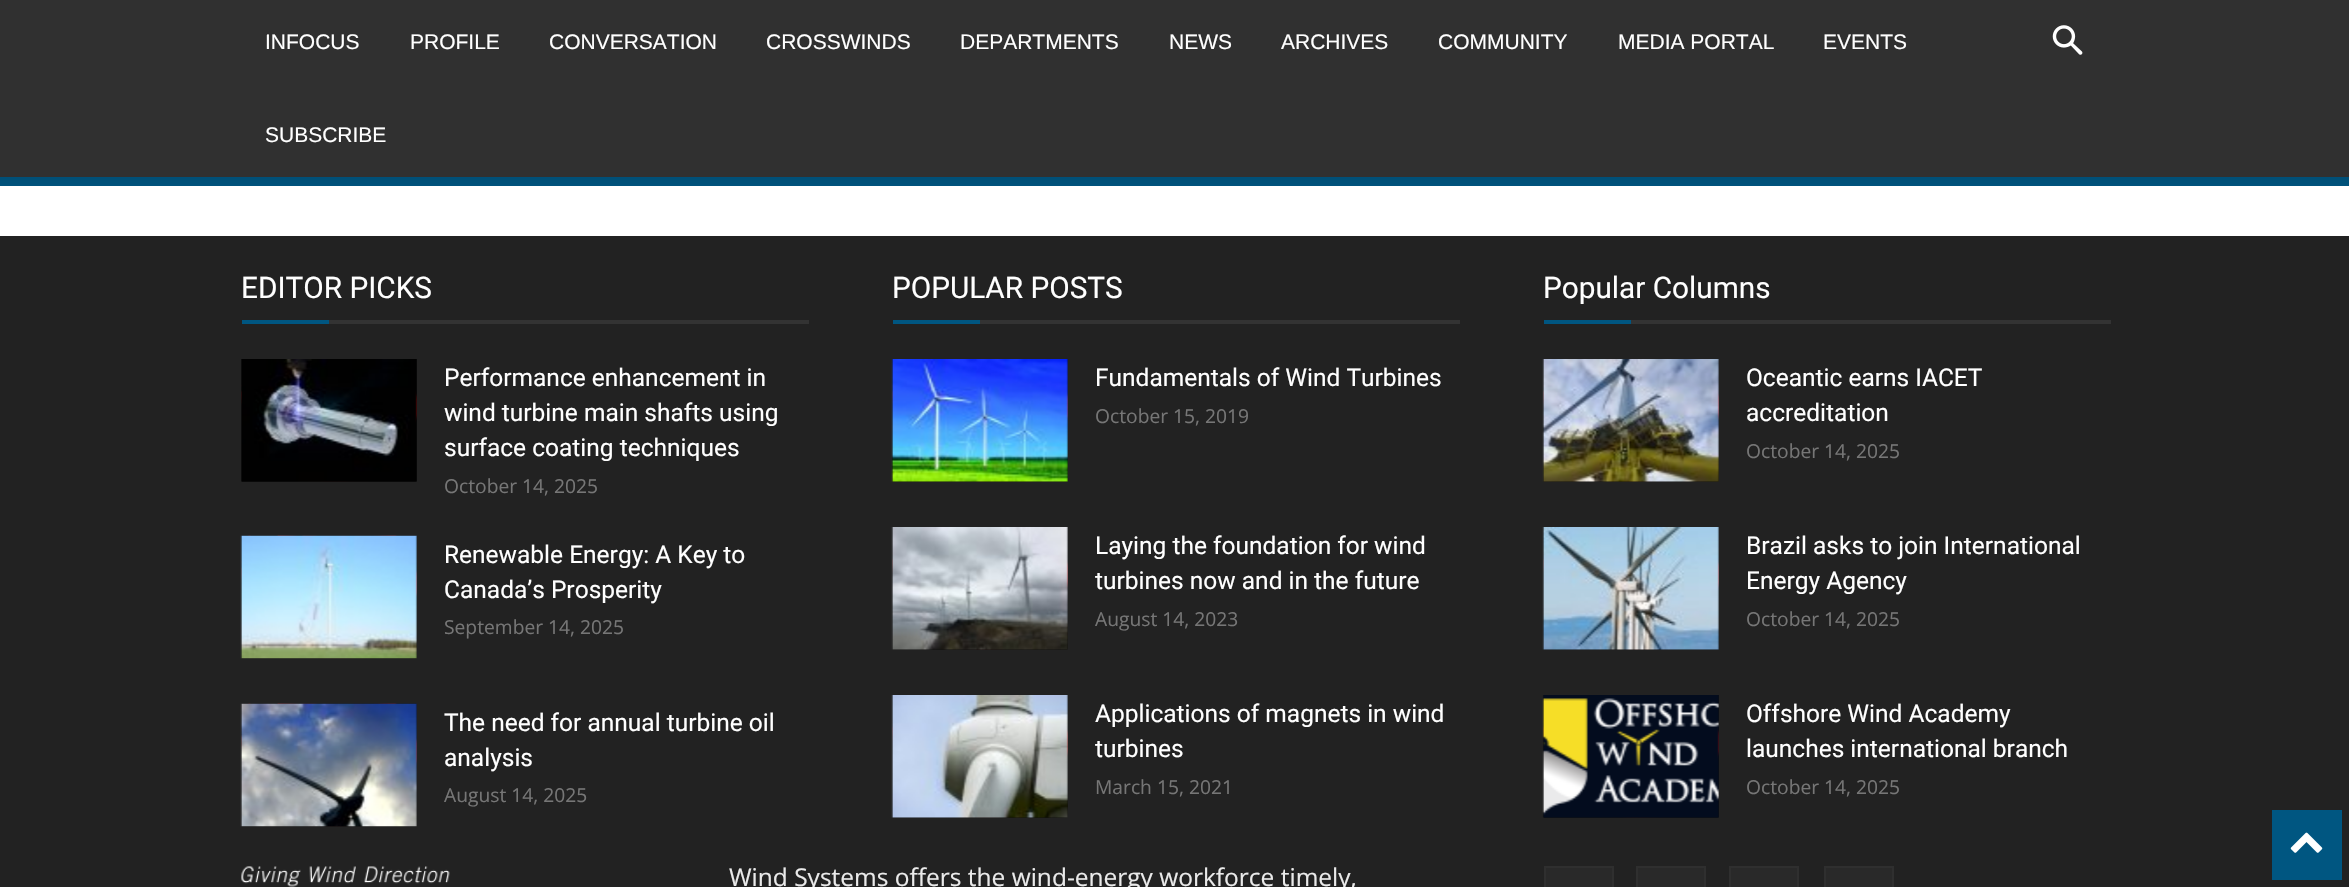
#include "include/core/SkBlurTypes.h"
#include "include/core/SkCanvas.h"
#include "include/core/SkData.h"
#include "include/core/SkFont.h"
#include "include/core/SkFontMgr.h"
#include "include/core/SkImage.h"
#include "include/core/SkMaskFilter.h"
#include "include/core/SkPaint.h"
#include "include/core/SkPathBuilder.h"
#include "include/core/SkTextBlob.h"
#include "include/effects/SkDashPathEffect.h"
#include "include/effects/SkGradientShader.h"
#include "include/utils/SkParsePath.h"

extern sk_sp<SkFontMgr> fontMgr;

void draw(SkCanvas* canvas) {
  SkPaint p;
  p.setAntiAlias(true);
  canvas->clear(SK_ColorWHITE);
  p.setColor(SkColorSetRGB(48, 48, 48));
  canvas->drawRect(SkRect::MakeLTRB(0, 0, 2349, 177), p);
  canvas->drawImageRect(SkImages::DeferredFromEncodedData(SkData::MakeFromFileName("images/1.png")), SkRect::MakeLTRB(2052, 25, 2083, 55), SkSamplingOptions());
  p.setColor(SkColorSetRGB(0, 86, 129));
  canvas->drawRect(SkRect::MakeLTRB(0, 177, 2349, 186), p);
  canvas->drawImageRect(SkImages::DeferredFromEncodedData(SkData::MakeFromFileName("images/2.png")), SkRect::MakeLTRB(0, 177, 2349, 186), SkSamplingOptions());
  p.setColor(SkColorSetRGB(34, 34, 34));
  canvas->drawRect(SkRect::MakeLTRB(0, 236, 2349, 887), p);
  p.setColor(SkColorSetRGB(0, 86, 129));
  canvas->drawRect(SkRect::MakeLTRB(242, 320, 329, 324), p);
  p.setColor(SkColorSetRGB(51, 51, 51));
  canvas->drawRect(SkRect::MakeLTRB(329, 320, 809, 324), p);
  canvas->drawImageRect(SkImages::DeferredFromEncodedData(SkData::MakeFromFileName("images/3.png")), SkRect::MakeLTRB(241, 359, 417, 482), SkSamplingOptions());
  canvas->drawImageRect(SkImages::DeferredFromEncodedData(SkData::MakeFromFileName("images/4.png")), SkRect::MakeLTRB(241, 359, 417, 482), SkSamplingOptions());
  canvas->drawImageRect(SkImages::DeferredFromEncodedData(SkData::MakeFromFileName("images/5.png")), SkRect::MakeLTRB(241, 535, 417, 659), SkSamplingOptions());
  canvas->drawImageRect(SkImages::DeferredFromEncodedData(SkData::MakeFromFileName("images/6.png")), SkRect::MakeLTRB(240, 535, 417, 659), SkSamplingOptions());
  canvas->drawImageRect(SkImages::DeferredFromEncodedData(SkData::MakeFromFileName("images/5.png")), SkRect::MakeLTRB(241, 703, 417, 827), SkSamplingOptions());
  canvas->drawImageRect(SkImages::DeferredFromEncodedData(SkData::MakeFromFileName("images/7.png")), SkRect::MakeLTRB(240, 703, 417, 827), SkSamplingOptions());
  p.setColor(SkColorSetRGB(0, 86, 129));
  canvas->drawRect(SkRect::MakeLTRB(893, 320, 980, 324), p);
  p.setColor(SkColorSetRGB(51, 51, 51));
  canvas->drawRect(SkRect::MakeLTRB(980, 320, 1460, 324), p);
  canvas->drawImageRect(SkImages::DeferredFromEncodedData(SkData::MakeFromFileName("images/3.png")), SkRect::MakeLTRB(892, 359, 1068, 482), SkSamplingOptions());
  canvas->drawImageRect(SkImages::DeferredFromEncodedData(SkData::MakeFromFileName("images/8.png")), SkRect::MakeLTRB(891, 359, 1068, 482), SkSamplingOptions());
  canvas->drawImageRect(SkImages::DeferredFromEncodedData(SkData::MakeFromFileName("images/3.png")), SkRect::MakeLTRB(892, 527, 1068, 650), SkSamplingOptions());
  canvas->drawImageRect(SkImages::DeferredFromEncodedData(SkData::MakeFromFileName("images/9.png")), SkRect::MakeLTRB(891, 527, 1068, 650), SkSamplingOptions());
  canvas->drawImageRect(SkImages::DeferredFromEncodedData(SkData::MakeFromFileName("images/3.png")), SkRect::MakeLTRB(892, 695, 1068, 818), SkSamplingOptions());
  canvas->drawImageRect(SkImages::DeferredFromEncodedData(SkData::MakeFromFileName("images/10.png")), SkRect::MakeLTRB(891, 695, 1068, 818), SkSamplingOptions());
  p.setColor(SkColorSetRGB(0, 86, 129));
  canvas->drawRect(SkRect::MakeLTRB(1544, 320, 1631, 324), p);
  p.setColor(SkColorSetRGB(51, 51, 51));
  canvas->drawRect(SkRect::MakeLTRB(1631, 320, 2111, 324), p);
  canvas->drawImageRect(SkImages::DeferredFromEncodedData(SkData::MakeFromFileName("images/3.png")), SkRect::MakeLTRB(1543, 359, 1719, 482), SkSamplingOptions());
  canvas->drawImageRect(SkImages::DeferredFromEncodedData(SkData::MakeFromFileName("images/11.png")), SkRect::MakeLTRB(1542, 359, 1719, 482), SkSamplingOptions());
  canvas->drawImageRect(SkImages::DeferredFromEncodedData(SkData::MakeFromFileName("images/3.png")), SkRect::MakeLTRB(1543, 527, 1719, 650), SkSamplingOptions());
  canvas->drawImageRect(SkImages::DeferredFromEncodedData(SkData::MakeFromFileName("images/12.png")), SkRect::MakeLTRB(1542, 527, 1719, 650), SkSamplingOptions());
  canvas->drawImageRect(SkImages::DeferredFromEncodedData(SkData::MakeFromFileName("images/3.png")), SkRect::MakeLTRB(1543, 695, 1719, 818), SkSamplingOptions());
  canvas->drawImageRect(SkImages::DeferredFromEncodedData(SkData::MakeFromFileName("images/13.png")), SkRect::MakeLTRB(1542, 695, 1719, 818), SkSamplingOptions());
  canvas->drawImageRect(SkImages::DeferredFromEncodedData(SkData::MakeFromFileName("images/14.png")), SkRect::MakeLTRB(241, 866, 450, 887), SkSamplingOptions());
  p.setColor(SkColorSetRGB(41, 41, 41));
  canvas->drawRect(SkRect::MakeLTRB(1545, 867, 1613, 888), p);
  p.setStyle(SkPaint::kStroke_Style);
  p.setStrokeWidth(2);
  p.setColor(SkColorSetRGB(47, 47, 47));
  canvas->drawRect(SkRect::MakeLTRB(1545, 867, 1613, 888), p);
  p.setStyle(SkPaint::kFill_Style);
  p.setColor(SkColorSetRGB(41, 41, 41));
  canvas->drawRect(SkRect::MakeLTRB(1637, 867, 1705, 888), p);
  p.setStyle(SkPaint::kStroke_Style);
  p.setColor(SkColorSetRGB(47, 47, 47));
  canvas->drawRect(SkRect::MakeLTRB(1637, 867, 1705, 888), p);
  p.setStyle(SkPaint::kFill_Style);
  p.setColor(SkColorSetRGB(41, 41, 41));
  canvas->drawRect(SkRect::MakeLTRB(1730, 867, 1798, 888), p);
  p.setStyle(SkPaint::kStroke_Style);
  p.setColor(SkColorSetRGB(47, 47, 47));
  canvas->drawRect(SkRect::MakeLTRB(1730, 867, 1798, 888), p);
  p.setStyle(SkPaint::kFill_Style);
  p.setColor(SkColorSetRGB(41, 41, 41));
  canvas->drawRect(SkRect::MakeLTRB(1825, 867, 1893, 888), p);
  p.setStyle(SkPaint::kStroke_Style);
  p.setColor(SkColorSetRGB(47, 47, 47));
  canvas->drawRect(SkRect::MakeLTRB(1825, 867, 1893, 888), p);
  p.setStyle(SkPaint::kFill_Style);
  p.setColor(SkColorSetRGB(0, 86, 129));
  canvas->drawRect(SkRect::MakeLTRB(2272, 810, 2342, 880), p);
  canvas->drawImageRect(SkImages::DeferredFromEncodedData(SkData::MakeFromFileName("images/15.png")), SkRect::MakeLTRB(2290, 832, 2323, 853), SkSamplingOptions());
  SkFont font1(fontMgr->matchFamilyStyle("Liberation Sans", SkFontStyle::Normal()), 21);
  font1.setSubpixel(true);
  p.setColor(SK_ColorWHITE);
  canvas->drawString("INFOCUS", 265, 49, font1, p);
  canvas->drawString("PROFILE", 410, 49, font1, p);
  canvas->drawString("CONVERSATION", 549, 49, font1, p);
  canvas->drawString("CROSSWINDS", 766, 49, font1, p);
  canvas->drawString("DEPARTMENTS", 960, 49, font1, p);
  canvas->drawString("NEWS", 1169, 49, font1, p);
  canvas->drawString("ARCHIVES", 1281, 49, font1, p);
  canvas->drawString("COMMUNITY", 1438, 49, font1, p);
  canvas->drawString("MEDIA PORTAL", 1618, 49, font1, p);
  canvas->drawString("EVENTS", 1823, 49, font1, p);
  canvas->drawString("SUBSCRIBE", 265, 142, font1, p);
  SkFont font2(fontMgr->matchFamilyStyle("Roboto", SkFontStyle::Normal()), 29.75f);
  font2.setSubpixel(true);
  canvas->drawString("EDITOR PICKS", 241, 298, font2, p);
  SkFont font3(fontMgr->matchFamilyStyle("Roboto", SkFontStyle::Normal()), 24.5f);
  font3.setSubpixel(true);
  canvas->drawString("Performance enhancement in", 444, 386, font3, p);
  canvas->drawString("wind turbine main shafts using", 444, 421, font3, p);
  canvas->drawString("surface coating techniques", 444, 456, font3, p);
  SkFont font4(fontMgr->matchFamilyStyle("Open Sans", SkFontStyle::Normal()), 19.25f);
  font4.setSubpixel(true);
  p.setColor(SkColorSetRGB(118, 118, 118));
  canvas->drawString("October 14, 2025", 444, 493, font4, p);
  p.setColor(SK_ColorWHITE);
  canvas->drawString("Renewable Energy: A Key to", 444, 563, font3, p);
  canvas->drawString("Canada’s Prosperity", 444, 598, font3, p);
  p.setColor(SkColorSetRGB(118, 118, 118));
  canvas->drawString("September 14, 2025", 444, 634, font4, p);
  p.setColor(SK_ColorWHITE);
  canvas->drawString("The need for annual turbine oil", 444, 731, font3, p);
  canvas->drawString("analysis", 444, 766, font3, p);
  p.setColor(SkColorSetRGB(118, 118, 118));
  canvas->drawString("August 14, 2025", 444, 802, font4, p);
  p.setColor(SK_ColorWHITE);
  canvas->drawString("POPULAR POSTS", 892, 298, font2, p);
  canvas->drawString("Fundamentals of Wind Turbines", 1095, 386, font3, p);
  p.setColor(SkColorSetRGB(118, 118, 118));
  canvas->drawString("October 15, 2019", 1095, 423, font4, p);
  p.setColor(SK_ColorWHITE);
  canvas->drawString("Laying the foundation for wind", 1095, 554, font3, p);
  canvas->drawString("turbines now and in the future", 1095, 589, font3, p);
  p.setColor(SkColorSetRGB(118, 118, 118));
  canvas->drawString("August 14, 2023", 1095, 626, font4, p);
  p.setColor(SK_ColorWHITE);
  canvas->drawString("Applications of magnets in wind", 1095, 722, font3, p);
  canvas->drawString("turbines", 1095, 757, font3, p);
  p.setColor(SkColorSetRGB(118, 118, 118));
  canvas->drawString("March 15, 2021", 1095, 794, font4, p);
  p.setColor(SK_ColorWHITE);
  canvas->drawString("Popular Columns", 1543, 298, font2, p);
  canvas->drawString("Oceantic earns IACET", 1746, 386, font3, p);
  canvas->drawString("accreditation", 1746, 421, font3, p);
  p.setColor(SkColorSetRGB(118, 118, 118));
  canvas->drawString("October 14, 2025", 1746, 458, font4, p);
  p.setColor(SK_ColorWHITE);
  canvas->drawString("Brazil asks to join International", 1746, 554, font3, p);
  canvas->drawString("Energy Agency", 1746, 589, font3, p);
  p.setColor(SkColorSetRGB(118, 118, 118));
  canvas->drawString("October 14, 2025", 1746, 626, font4, p);
  p.setColor(SK_ColorWHITE);
  canvas->drawString("Offshore Wind Academy", 1746, 722, font3, p);
  canvas->drawString("launches international branch", 1746, 757, font3, p);
  p.setColor(SkColorSetRGB(118, 118, 118));
  canvas->drawString("October 14, 2025", 1746, 794, font4, p);
  SkFont font5(fontMgr->matchFamilyStyle("Open Sans", SkFontStyle::Normal()), 24.5f);
  font5.setSubpixel(true);
  p.setColor(SkColorSetRGB(234, 234, 234));
  canvas->drawString("Wind Systems offers the wind-energy workforce timely,", 729, 886, font5, p);
}
